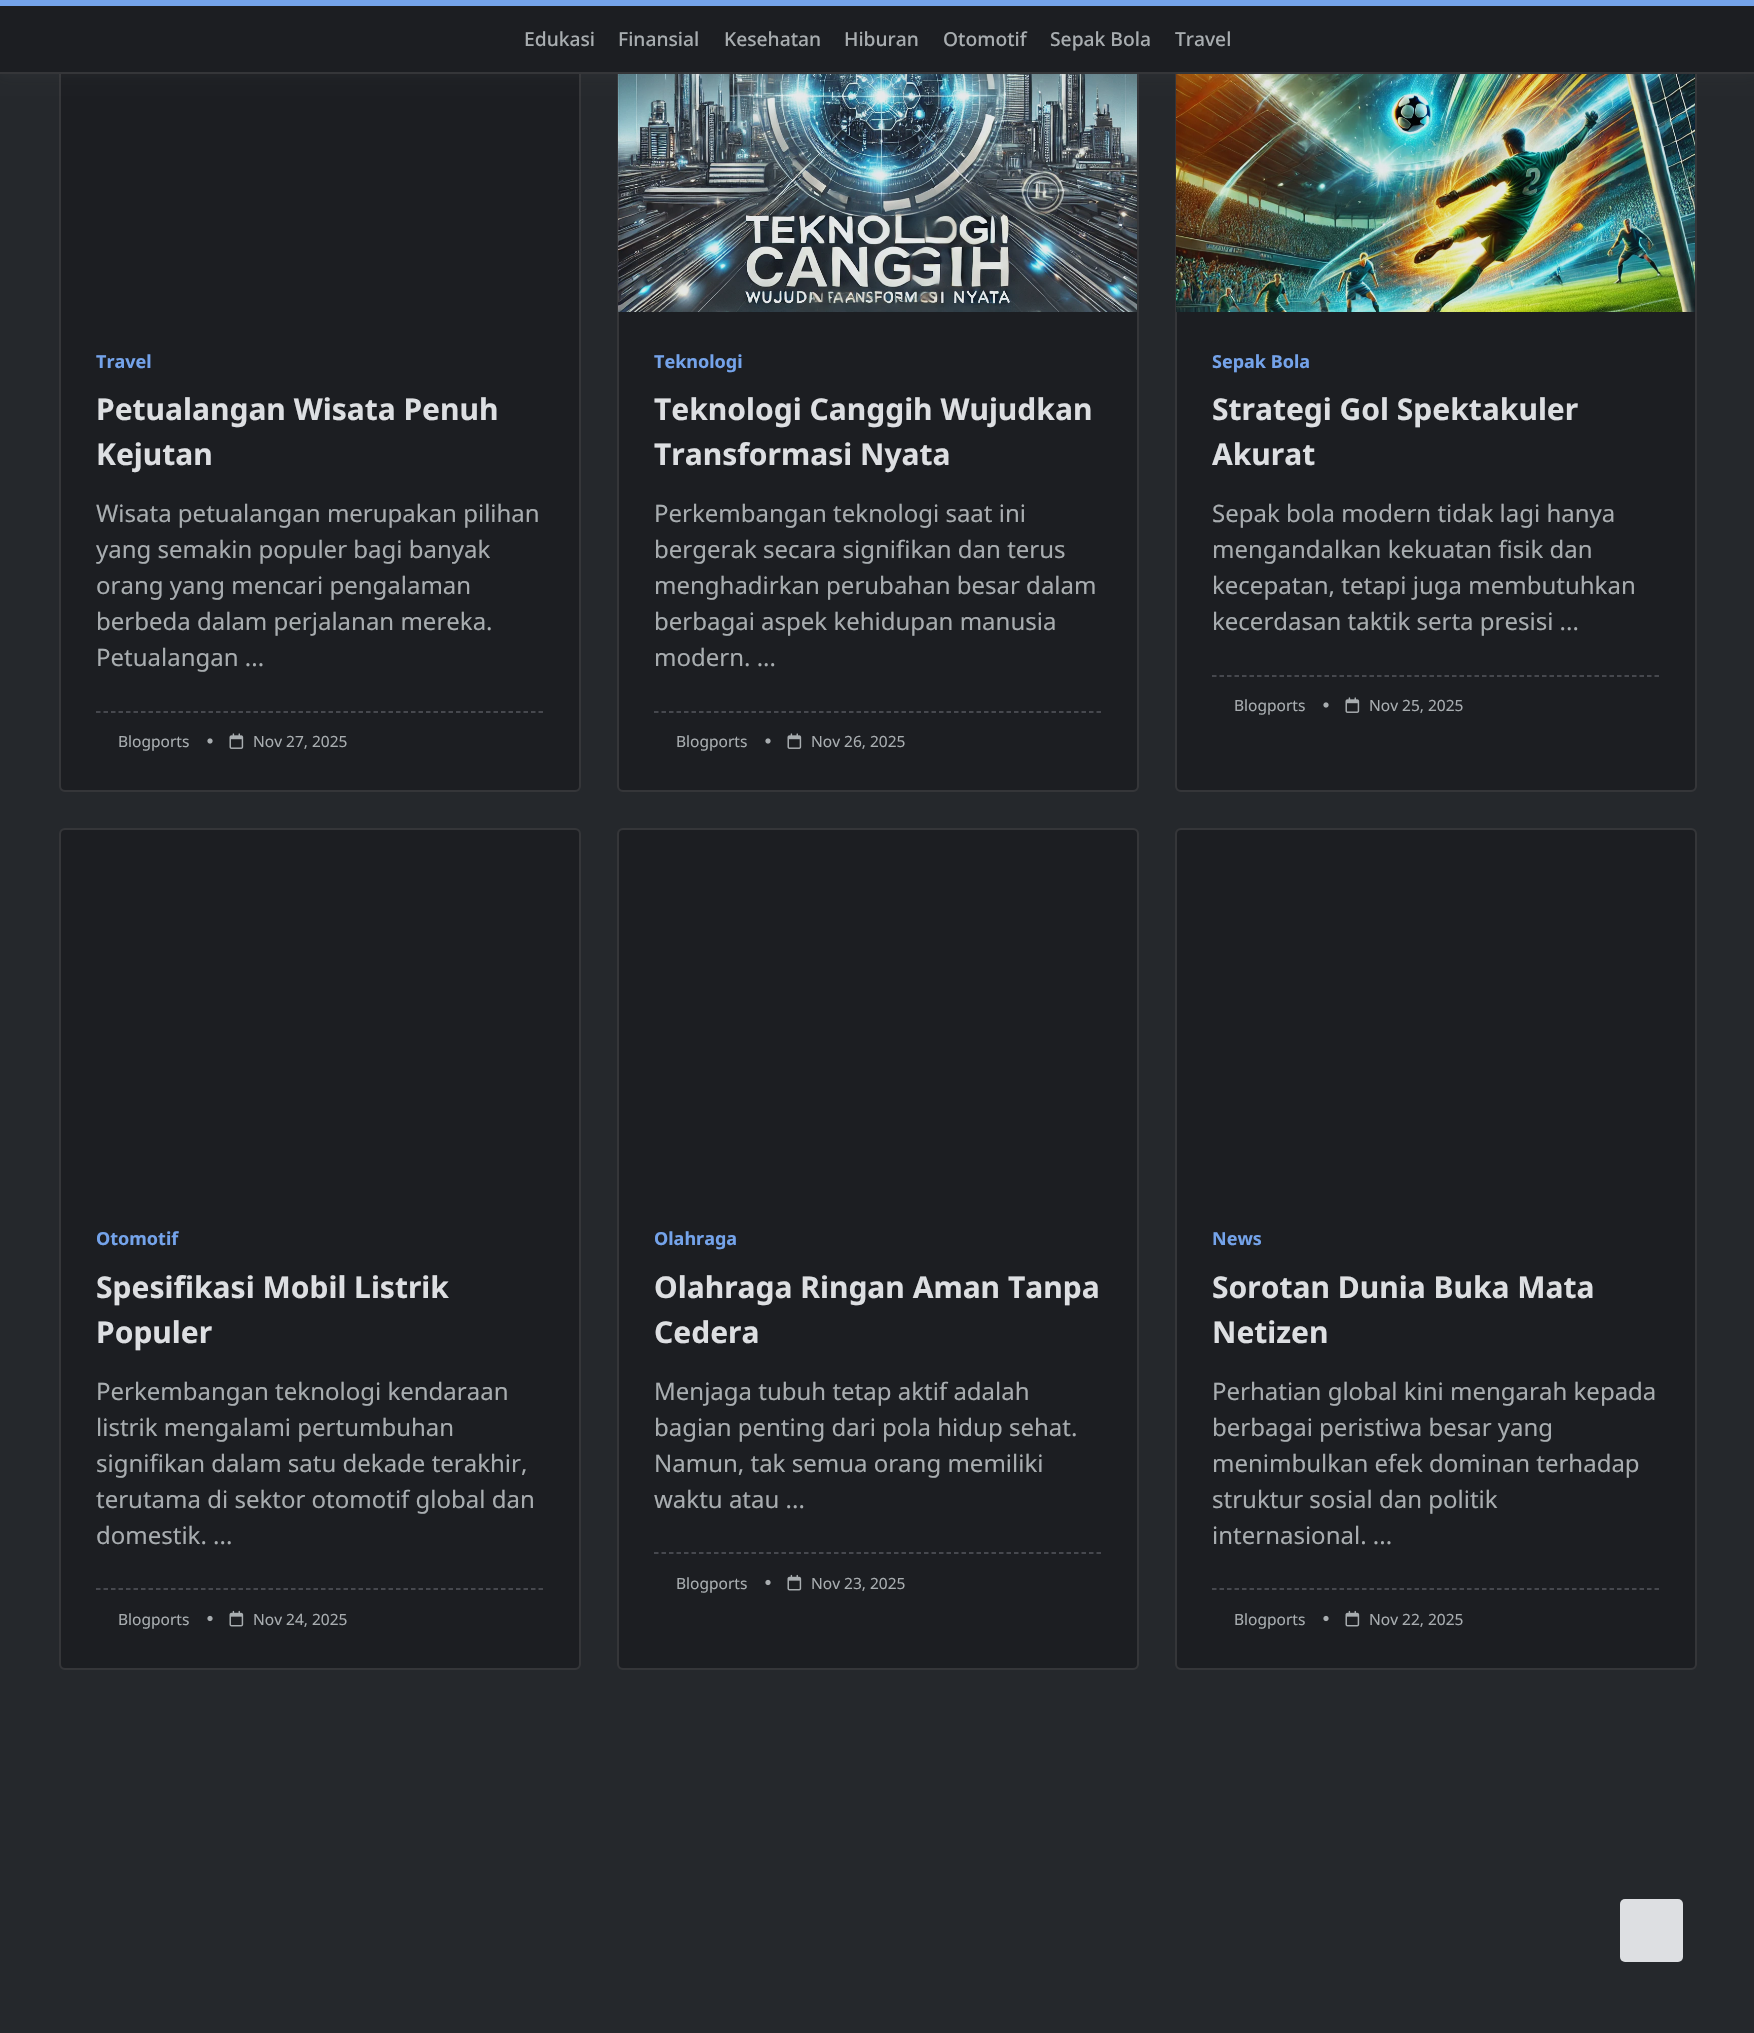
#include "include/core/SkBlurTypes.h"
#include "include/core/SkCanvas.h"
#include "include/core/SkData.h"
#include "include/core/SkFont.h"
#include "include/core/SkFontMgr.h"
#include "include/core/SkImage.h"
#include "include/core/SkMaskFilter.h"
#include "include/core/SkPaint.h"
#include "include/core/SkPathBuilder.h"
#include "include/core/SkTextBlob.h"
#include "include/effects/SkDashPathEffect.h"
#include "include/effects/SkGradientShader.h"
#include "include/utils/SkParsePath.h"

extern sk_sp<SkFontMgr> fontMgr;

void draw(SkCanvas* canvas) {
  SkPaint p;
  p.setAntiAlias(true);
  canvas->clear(SkColorSetRGB(37, 40, 44));
  p.setColor(SkColorSetRGB(28, 30, 34));
  canvas->drawRoundRect(SkRect::MakeLTRB(60, -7, 580, 791), 5, 5, p);
  p.setStyle(SkPaint::kStroke_Style);
  p.setStrokeWidth(2);
  p.setColor(SkColorSetRGB(53, 54, 57));
  canvas->drawRoundRect(SkRect::MakeLTRB(60, -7, 580, 791), 5, 5, p);
  p.setStyle(SkPaint::kFill_Style);
  p.setColor(SkColorSetRGB(28, 30, 34));
  canvas->drawRoundRect(SkRect::MakeLTRB(618, -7, 1138, 791), 5, 5, p);
  p.setStyle(SkPaint::kStroke_Style);
  p.setColor(SkColorSetRGB(53, 54, 57));
  canvas->drawRoundRect(SkRect::MakeLTRB(618, -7, 1138, 791), 5, 5, p);
  canvas->drawImageRect(SkImages::DeferredFromEncodedData(SkData::MakeFromFileName("images/3.png")), SkRect::MakeLTRB(618, 74, 1137, 312), SkSamplingOptions());
  p.setStyle(SkPaint::kFill_Style);
  p.setColor(SkColorSetRGB(28, 30, 34));
  canvas->drawRoundRect(SkRect::MakeLTRB(1176, -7, 1696, 791), 5, 5, p);
  p.setStyle(SkPaint::kStroke_Style);
  p.setColor(SkColorSetRGB(53, 54, 57));
  canvas->drawRoundRect(SkRect::MakeLTRB(1176, -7, 1696, 791), 5, 5, p);
  canvas->drawImageRect(SkImages::DeferredFromEncodedData(SkData::MakeFromFileName("images/4.png")), SkRect::MakeLTRB(1176, 74, 1695, 312), SkSamplingOptions());
  p.setStyle(SkPaint::kFill_Style);
  p.setColor(SkColorSetARGB(26, 132, 133, 134));
  p.setMaskFilter(SkMaskFilter::MakeBlur(kNormal_SkBlurStyle, 7.5f));
  canvas->drawRect(SkRect::MakeLTRB(0, 0, 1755, 74), p);
  p.setMaskFilter(nullptr);
  p.setColor(SkColorSetRGB(28, 30, 34));
  canvas->drawRect(SkRect::MakeLTRB(0, 6, 1754, 72), p);
  p.setColor(SkColorSetRGB(116, 163, 234));
  canvas->drawRect(SkRect::MakeLTRB(0, 0, 1754, 6), p);
  p.setColor(SkColorSetRGB(53, 54, 57));
  canvas->drawRect(SkRect::MakeLTRB(0, 72, 1754, 74), p);
  p.setStyle(SkPaint::kStroke_Style);
  p.setStrokeWidth(1.5f);
  p.setColor(SkColorSetRGB(83, 85, 92));
  p.setPathEffect(SkDashPathEffect::Make({{4.5f, 3}}, 0));
  canvas->drawPath(SkPathBuilder().moveTo(96, 712).lineTo(543, 712).detach(), p);
  p.setPathEffect(nullptr);
  canvas->drawImageRect(SkImages::DeferredFromEncodedData(SkData::MakeFromFileName("images/1.png")), SkRect::MakeLTRB(207, 738, 213, 744), SkSamplingOptions());
  canvas->drawImageRect(SkImages::DeferredFromEncodedData(SkData::MakeFromFileName("images/2.png")), SkRect::MakeLTRB(229, 733, 244, 749), SkSamplingOptions());
  p.setPathEffect(SkDashPathEffect::Make({{4.5f, 3}}, 0));
  canvas->drawPath(SkPathBuilder().moveTo(654, 712).lineTo(1101, 712).detach(), p);
  p.setPathEffect(nullptr);
  canvas->drawImageRect(SkImages::DeferredFromEncodedData(SkData::MakeFromFileName("images/1.png")), SkRect::MakeLTRB(765, 738, 771, 744), SkSamplingOptions());
  canvas->drawImageRect(SkImages::DeferredFromEncodedData(SkData::MakeFromFileName("images/2.png")), SkRect::MakeLTRB(787, 733, 802, 749), SkSamplingOptions());
  p.setPathEffect(SkDashPathEffect::Make({{4.5f, 3}}, 0));
  canvas->drawPath(SkPathBuilder().moveTo(1212, 676).lineTo(1659, 676).detach(), p);
  p.setPathEffect(nullptr);
  canvas->drawImageRect(SkImages::DeferredFromEncodedData(SkData::MakeFromFileName("images/1.png")), SkRect::MakeLTRB(1323, 702, 1329, 708), SkSamplingOptions());
  canvas->drawImageRect(SkImages::DeferredFromEncodedData(SkData::MakeFromFileName("images/2.png")), SkRect::MakeLTRB(1345, 697, 1360, 713), SkSamplingOptions());
  p.setStyle(SkPaint::kFill_Style);
  p.setColor(SkColorSetRGB(28, 30, 34));
  canvas->drawRoundRect(SkRect::MakeLTRB(60, 829, 580, 1669), 5, 5, p);
  p.setStyle(SkPaint::kStroke_Style);
  p.setStrokeWidth(2);
  p.setColor(SkColorSetRGB(53, 54, 57));
  canvas->drawRoundRect(SkRect::MakeLTRB(60, 829, 580, 1669), 5, 5, p);
  p.setStrokeWidth(1.5f);
  p.setColor(SkColorSetRGB(83, 85, 92));
  p.setPathEffect(SkDashPathEffect::Make({{4.5f, 3}}, 0));
  canvas->drawPath(SkPathBuilder().moveTo(96, 1589).lineTo(543, 1589).detach(), p);
  p.setPathEffect(nullptr);
  canvas->drawImageRect(SkImages::DeferredFromEncodedData(SkData::MakeFromFileName("images/5.png")), SkRect::MakeLTRB(207, 1615, 213, 1622), SkSamplingOptions());
  canvas->drawImageRect(SkImages::DeferredFromEncodedData(SkData::MakeFromFileName("images/6.png")), SkRect::MakeLTRB(229, 1610, 244, 1627), SkSamplingOptions());
  p.setStyle(SkPaint::kFill_Style);
  p.setColor(SkColorSetRGB(28, 30, 34));
  canvas->drawRoundRect(SkRect::MakeLTRB(618, 829, 1138, 1669), 5, 5, p);
  p.setStyle(SkPaint::kStroke_Style);
  p.setStrokeWidth(2);
  p.setColor(SkColorSetRGB(53, 54, 57));
  canvas->drawRoundRect(SkRect::MakeLTRB(618, 829, 1138, 1669), 5, 5, p);
  p.setStrokeWidth(1.5f);
  p.setColor(SkColorSetRGB(83, 85, 92));
  p.setPathEffect(SkDashPathEffect::Make({{4.5f, 3}}, 0));
  canvas->drawPath(SkPathBuilder().moveTo(654, 1553).lineTo(1101, 1553).detach(), p);
  p.setPathEffect(nullptr);
  canvas->drawImageRect(SkImages::DeferredFromEncodedData(SkData::MakeFromFileName("images/5.png")), SkRect::MakeLTRB(765, 1579, 771, 1586), SkSamplingOptions());
  canvas->drawImageRect(SkImages::DeferredFromEncodedData(SkData::MakeFromFileName("images/6.png")), SkRect::MakeLTRB(787, 1574, 802, 1591), SkSamplingOptions());
  p.setStyle(SkPaint::kFill_Style);
  p.setColor(SkColorSetRGB(28, 30, 34));
  canvas->drawRoundRect(SkRect::MakeLTRB(1176, 829, 1696, 1669), 5, 5, p);
  p.setStyle(SkPaint::kStroke_Style);
  p.setStrokeWidth(2);
  p.setColor(SkColorSetRGB(53, 54, 57));
  canvas->drawRoundRect(SkRect::MakeLTRB(1176, 829, 1696, 1669), 5, 5, p);
  p.setStrokeWidth(1.5f);
  p.setColor(SkColorSetRGB(83, 85, 92));
  p.setPathEffect(SkDashPathEffect::Make({{4.5f, 3}}, 0));
  canvas->drawPath(SkPathBuilder().moveTo(1212, 1589).lineTo(1659, 1589).detach(), p);
  p.setPathEffect(nullptr);
  canvas->drawImageRect(SkImages::DeferredFromEncodedData(SkData::MakeFromFileName("images/5.png")), SkRect::MakeLTRB(1323, 1615, 1329, 1622), SkSamplingOptions());
  canvas->drawImageRect(SkImages::DeferredFromEncodedData(SkData::MakeFromFileName("images/6.png")), SkRect::MakeLTRB(1345, 1610, 1360, 1627), SkSamplingOptions());
  p.setStyle(SkPaint::kFill_Style);
  p.setColor(SkColorSetRGB(221, 223, 226));
  canvas->drawRoundRect(SkRect::MakeLTRB(1620, 1899, 1683, 1962), 5, 5, p);
  SkFont font1(fontMgr->matchFamilyStyle("Noto Sans", SkFontStyle(500, SkFontStyle::kNormal_Width, SkFontStyle::kUpright_Slant)), 19.25f);
  font1.setSubpixel(true);
  p.setColor(SkColorSetRGB(168, 173, 176));
  canvas->drawString("Edukasi", 524, 46, font1, p);
  canvas->drawString("Finansial", 618, 46, font1, p);
  canvas->drawString("Kesehatan", 724, 46, font1, p);
  canvas->drawString("Hiburan", 844, 46, font1, p);
  canvas->drawString("Otomotif", 943, 46, font1, p);
  canvas->drawString("Sepak Bola", 1050, 46, font1, p);
  canvas->drawString("Travel", 1175, 46, font1, p);
  SkFont font2(fontMgr->matchFamilyStyle("Noto Sans", SkFontStyle::Bold()), 18);
  font2.setSubpixel(true);
  p.setColor(SkColorSetRGB(116, 163, 234));
  canvas->drawString("Travel", 96, 368, font2, p);
  SkFont font3(fontMgr->matchFamilyStyle("Noto Sans", SkFontStyle::Bold()), 30);
  font3.setSubpixel(true);
  p.setColor(SkColorSetRGB(221, 223, 226));
  canvas->drawString("Petualangan Wisata Penuh", 96, 420, font3, p);
  canvas->drawString("Kejutan", 96, 465, font3, p);
  SkFont font4(fontMgr->matchFamilyStyle("Noto Sans", SkFontStyle::Normal()), 24);
  font4.setSubpixel(true);
  p.setColor(SkColorSetRGB(168, 173, 176));
  canvas->drawString("Wisata petualangan merupakan pilihan", 96, 522, font4, p);
  canvas->drawString("yang semakin populer bagi banyak", 96, 558, font4, p);
  canvas->drawString("orang yang mencari pengalaman", 96, 594, font4, p);
  canvas->drawString("berbeda dalam perjalanan mereka.", 96, 630, font4, p);
  canvas->drawString("Petualangan ...", 96, 666, font4, p);
  SkFont font5(fontMgr->matchFamilyStyle("Noto Sans", SkFontStyle::Normal()), 15.5f);
  font5.setSubpixel(true);
  canvas->drawString("Blogports", 118, 747, font5, p);
  canvas->drawString("Nov 27, 2025", 253, 747, font5, p);
  p.setColor(SkColorSetRGB(116, 163, 234));
  canvas->drawString("Teknologi", 654, 368, font2, p);
  p.setColor(SkColorSetRGB(221, 223, 226));
  canvas->drawString("Teknologi Canggih Wujudkan", 654, 420, font3, p);
  canvas->drawString("Transformasi Nyata", 654, 465, font3, p);
  p.setColor(SkColorSetRGB(168, 173, 176));
  canvas->drawString("Perkembangan teknologi saat ini", 654, 522, font4, p);
  canvas->drawString("bergerak secara signifikan dan terus", 654, 558, font4, p);
  canvas->drawString("menghadirkan perubahan besar dalam", 654, 594, font4, p);
  canvas->drawString("berbagai aspek kehidupan manusia", 654, 630, font4, p);
  canvas->drawString("modern. ...", 654, 666, font4, p);
  canvas->drawString("Blogports", 676, 747, font5, p);
  canvas->drawString("Nov 26, 2025", 811, 747, font5, p);
  p.setColor(SkColorSetRGB(116, 163, 234));
  canvas->drawString("Sepak Bola", 1212, 368, font2, p);
  p.setColor(SkColorSetRGB(221, 223, 226));
  canvas->drawString("Strategi Gol Spektakuler", 1212, 420, font3, p);
  canvas->drawString("Akurat", 1212, 465, font3, p);
  p.setColor(SkColorSetRGB(168, 173, 176));
  canvas->drawString("Sepak bola modern tidak lagi hanya", 1212, 522, font4, p);
  canvas->drawString("mengandalkan kekuatan fisik dan", 1212, 558, font4, p);
  canvas->drawString("kecepatan, tetapi juga membutuhkan", 1212, 594, font4, p);
  canvas->drawString("kecerdasan taktik serta presisi ...", 1212, 630, font4, p);
  canvas->drawString("Blogports", 1234, 711, font5, p);
  canvas->drawString("Nov 25, 2025", 1369, 711, font5, p);
  p.setColor(SkColorSetRGB(116, 163, 234));
  canvas->drawString("Otomotif", 96, 1245, font2, p);
  p.setColor(SkColorSetRGB(221, 223, 226));
  canvas->drawString("Spesifikasi Mobil Listrik", 96, 1298, font3, p);
  canvas->drawString("Populer", 96, 1343, font3, p);
  p.setColor(SkColorSetRGB(168, 173, 176));
  canvas->drawString("Perkembangan teknologi kendaraan", 96, 1400, font4, p);
  canvas->drawString("listrik mengalami pertumbuhan", 96, 1436, font4, p);
  canvas->drawString("signifikan dalam satu dekade terakhir,", 96, 1472, font4, p);
  canvas->drawString("terutama di sektor otomotif global dan", 96, 1508, font4, p);
  canvas->drawString("domestik. ...", 96, 1544, font4, p);
  canvas->drawString("Blogports", 118, 1625, font5, p);
  canvas->drawString("Nov 24, 2025", 253, 1625, font5, p);
  p.setColor(SkColorSetRGB(116, 163, 234));
  canvas->drawString("Olahraga", 654, 1245, font2, p);
  p.setColor(SkColorSetRGB(221, 223, 226));
  canvas->drawString("Olahraga Ringan Aman Tanpa", 654, 1298, font3, p);
  canvas->drawString("Cedera", 654, 1343, font3, p);
  p.setColor(SkColorSetRGB(168, 173, 176));
  canvas->drawString("Menjaga tubuh tetap aktif adalah", 654, 1400, font4, p);
  canvas->drawString("bagian penting dari pola hidup sehat.", 654, 1436, font4, p);
  canvas->drawString("Namun, tak semua orang memiliki", 654, 1472, font4, p);
  canvas->drawString("waktu atau ...", 654, 1508, font4, p);
  canvas->drawString("Blogports", 676, 1589, font5, p);
  canvas->drawString("Nov 23, 2025", 811, 1589, font5, p);
  p.setColor(SkColorSetRGB(116, 163, 234));
  canvas->drawString("News", 1212, 1245, font2, p);
  p.setColor(SkColorSetRGB(221, 223, 226));
  canvas->drawString("Sorotan Dunia Buka Mata", 1212, 1298, font3, p);
  canvas->drawString("Netizen", 1212, 1343, font3, p);
  p.setColor(SkColorSetRGB(168, 173, 176));
  canvas->drawString("Perhatian global kini mengarah kepada", 1212, 1400, font4, p);
  canvas->drawString("berbagai peristiwa besar yang", 1212, 1436, font4, p);
  canvas->drawString("menimbulkan efek dominan terhadap", 1212, 1472, font4, p);
  canvas->drawString("struktur sosial dan politik", 1212, 1508, font4, p);
  canvas->drawString("internasional. ...", 1212, 1544, font4, p);
  canvas->drawString("Blogports", 1234, 1625, font5, p);
  canvas->drawString("Nov 22, 2025", 1369, 1625, font5, p);
}
